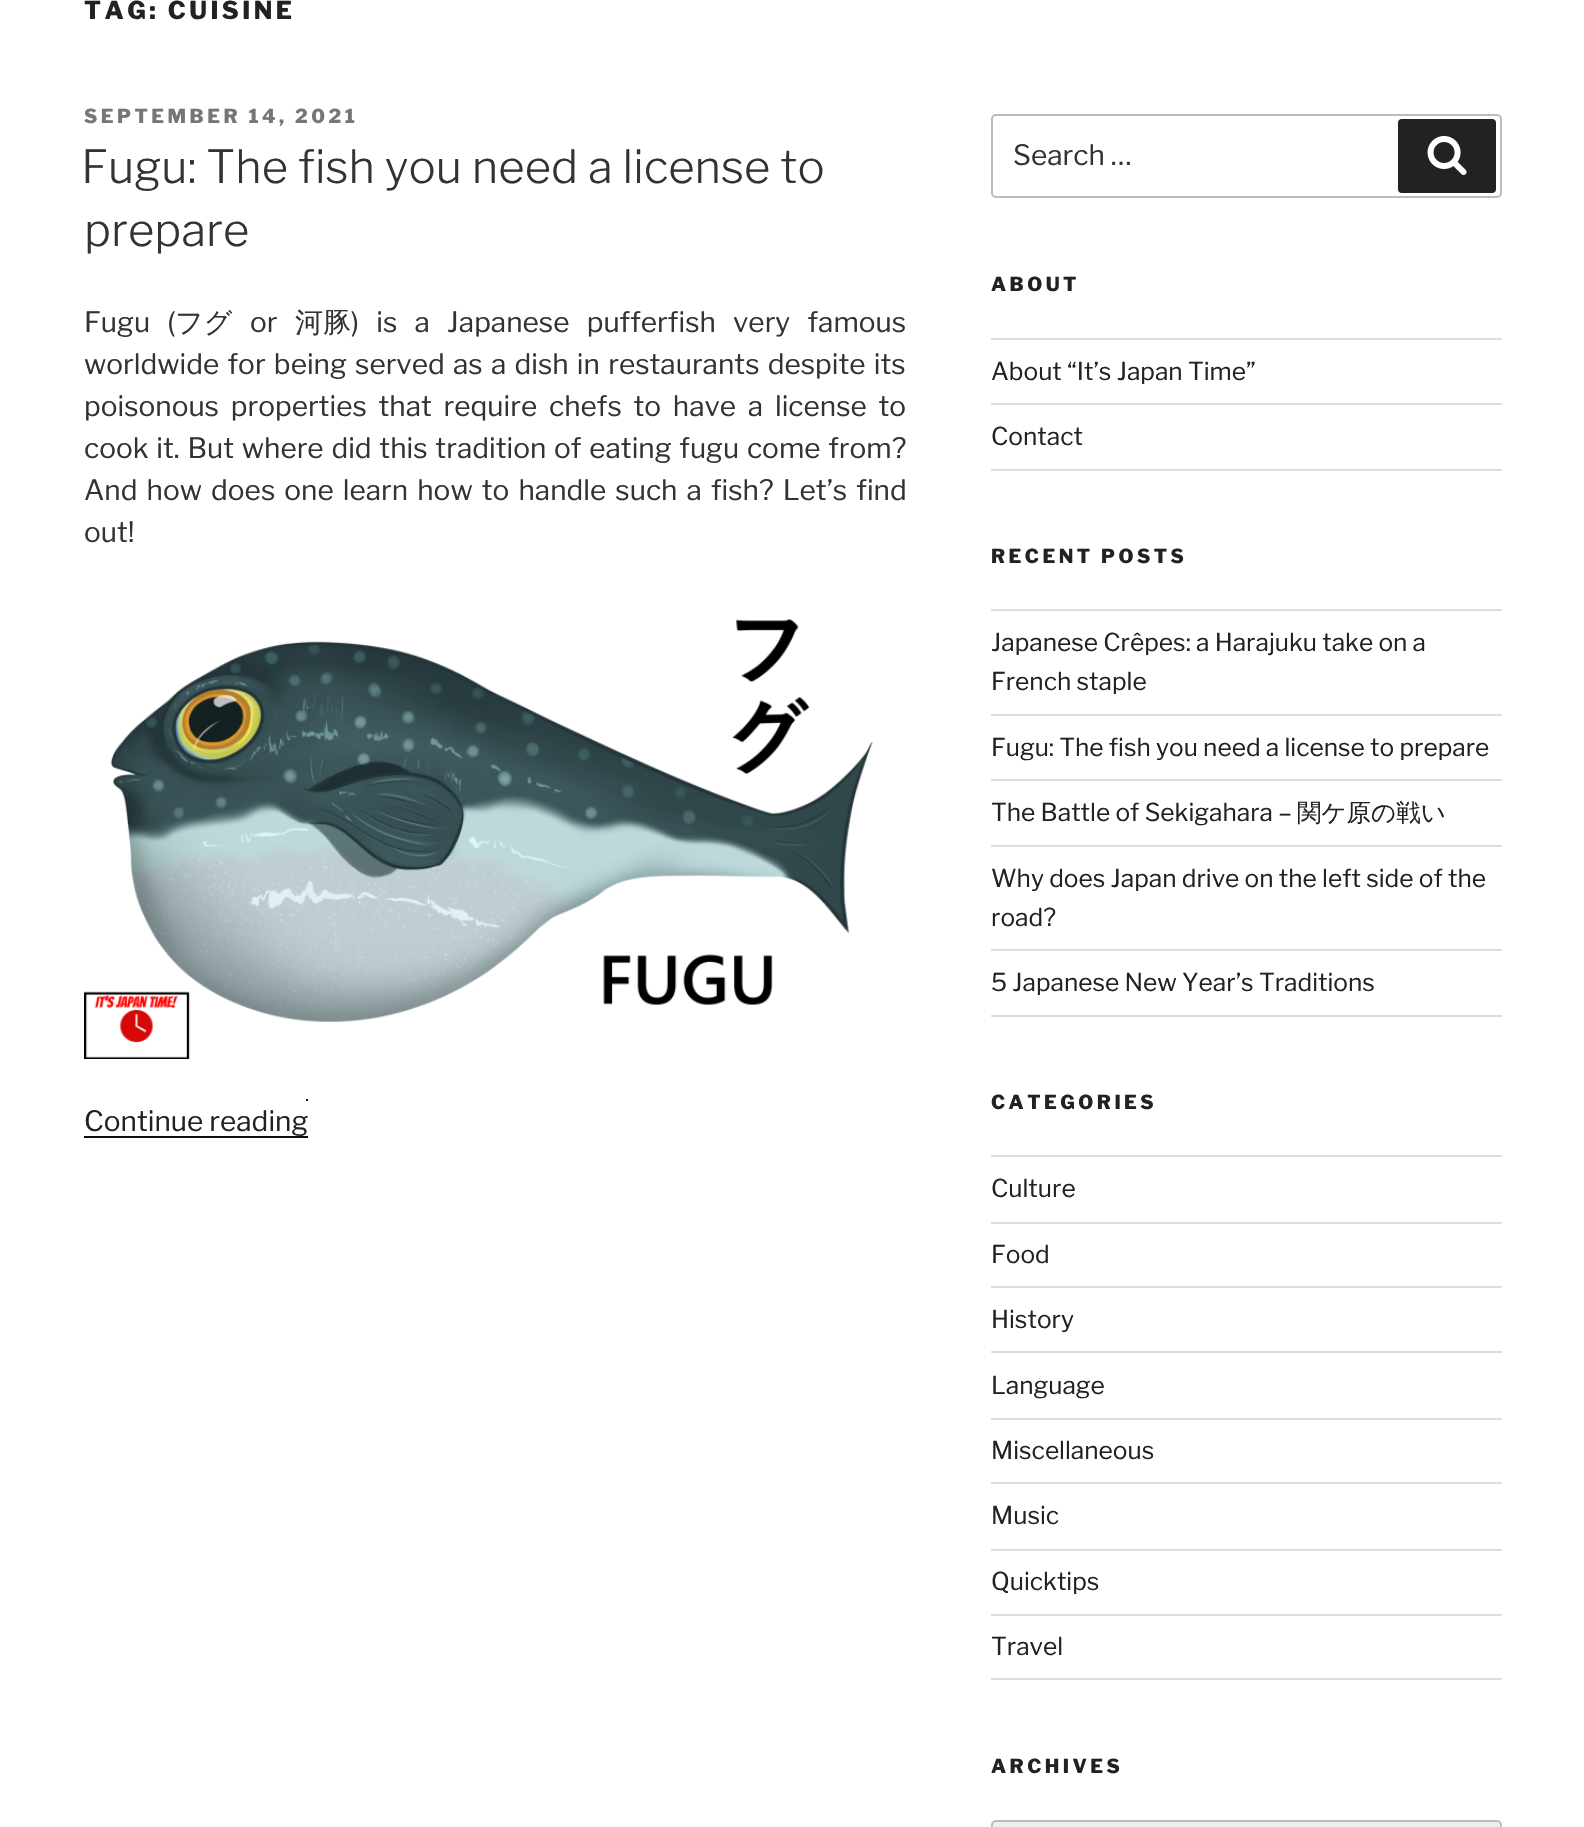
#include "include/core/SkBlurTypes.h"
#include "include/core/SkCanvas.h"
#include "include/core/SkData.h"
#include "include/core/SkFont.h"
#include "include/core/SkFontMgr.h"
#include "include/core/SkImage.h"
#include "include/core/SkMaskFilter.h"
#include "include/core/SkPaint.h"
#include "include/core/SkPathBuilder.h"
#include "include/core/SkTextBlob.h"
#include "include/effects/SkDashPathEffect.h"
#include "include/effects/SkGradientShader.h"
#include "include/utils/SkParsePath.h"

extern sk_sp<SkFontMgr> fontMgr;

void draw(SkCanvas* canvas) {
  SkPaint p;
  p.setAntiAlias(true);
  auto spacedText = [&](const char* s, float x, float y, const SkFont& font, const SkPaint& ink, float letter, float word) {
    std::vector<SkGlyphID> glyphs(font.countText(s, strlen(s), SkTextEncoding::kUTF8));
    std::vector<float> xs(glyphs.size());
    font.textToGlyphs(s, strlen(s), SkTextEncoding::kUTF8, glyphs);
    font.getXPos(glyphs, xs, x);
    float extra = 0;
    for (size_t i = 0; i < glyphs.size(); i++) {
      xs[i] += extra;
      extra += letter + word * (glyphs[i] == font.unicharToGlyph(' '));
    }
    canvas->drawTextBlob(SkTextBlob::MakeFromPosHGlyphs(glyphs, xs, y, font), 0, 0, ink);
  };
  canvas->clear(SK_ColorWHITE);
  canvas->drawImageRect(SkImages::DeferredFromEncodedData(SkData::MakeFromFileName("images/1.png")), SkRect::MakeLTRB(84, 619, 874, 1059), SkSamplingOptions());
  p.setColor(SkColorSetRGB(15, 15, 15));
  canvas->drawRect(SkRect::MakeLTRB(84, 1136, 308, 1138), p);
  canvas->drawRect(SkRect::MakeLTRB(306, 1099, 308, 1101), p);
  p.setStyle(SkPaint::kStroke_Style);
  p.setStrokeWidth(2);
  p.setColor(SkColorSetRGB(187, 187, 187));
  canvas->drawRoundRect(SkRect::MakeLTRB(992, 115, 1501, 197), 4, 4, p);
  p.setStyle(SkPaint::kFill_Style);
  p.setColor(SkColorSetRGB(34, 34, 34));
  canvas->drawRoundRect(SkRect::MakeLTRB(1398, 119, 1496, 193), 4, 4, p);
  canvas->drawImageRect(SkImages::DeferredFromEncodedData(SkData::MakeFromFileName("images/2.png")), SkRect::MakeLTRB(1427, 136, 1467, 175), SkSamplingOptions());
  p.setColor(SkColorSetRGB(221, 221, 221));
  canvas->drawRect(SkRect::MakeLTRB(991, 338, 1502, 340), p);
  canvas->drawRect(SkRect::MakeLTRB(991, 403, 1502, 405), p);
  canvas->drawRect(SkRect::MakeLTRB(991, 469, 1502, 471), p);
  canvas->drawRect(SkRect::MakeLTRB(991, 609, 1502, 611), p);
  canvas->drawRect(SkRect::MakeLTRB(991, 714, 1502, 716), p);
  canvas->drawRect(SkRect::MakeLTRB(991, 779, 1502, 781), p);
  canvas->drawRect(SkRect::MakeLTRB(991, 845, 1502, 847), p);
  canvas->drawRect(SkRect::MakeLTRB(991, 949, 1502, 951), p);
  canvas->drawRect(SkRect::MakeLTRB(991, 1015, 1502, 1017), p);
  canvas->drawRect(SkRect::MakeLTRB(991, 1155, 1502, 1157), p);
  canvas->drawRect(SkRect::MakeLTRB(991, 1222, 1502, 1224), p);
  canvas->drawRect(SkRect::MakeLTRB(991, 1286, 1502, 1288), p);
  canvas->drawRect(SkRect::MakeLTRB(991, 1351, 1502, 1353), p);
  canvas->drawRect(SkRect::MakeLTRB(991, 1418, 1502, 1420), p);
  canvas->drawRect(SkRect::MakeLTRB(991, 1482, 1502, 1484), p);
  canvas->drawRect(SkRect::MakeLTRB(991, 1549, 1502, 1551), p);
  canvas->drawRect(SkRect::MakeLTRB(991, 1614, 1502, 1616), p);
  canvas->drawRect(SkRect::MakeLTRB(991, 1678, 1502, 1680), p);
  p.setColor(SkColorSetRGB(239, 239, 239));
  canvas->drawRoundRect(SkRect::MakeLTRB(992, 1821, 1501, 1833), 4, 4, p);
  p.setStyle(SkPaint::kStroke_Style);
  p.setColor(SkColorSetRGB(187, 187, 187));
  canvas->drawRoundRect(SkRect::MakeLTRB(992, 1821, 1501, 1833), 4, 4, p);
  SkFont font1(fontMgr->matchFamilyStyle("Libre Franklin", SkFontStyle(100, SkFontStyle::kNormal_Width, SkFontStyle::kUpright_Slant)), 24.5f);
  font1.setSubpixel(true);
  p.setStyle(SkPaint::kFill_Style);
  p.setColor(SkColorSetRGB(34, 34, 34));
  spacedText("TAG: CUISINE", 84, 19, font1, p, 3.5f, 0);
  SkFont font2(fontMgr->matchFamilyStyle("Libre Franklin", SkFontStyle(100, SkFontStyle::kNormal_Width, SkFontStyle::kUpright_Slant)), 19.25f);
  font2.setSubpixel(true);
  p.setColor(SkColorSetRGB(118, 118, 118));
  spacedText("SEPTEMBER 14, 2021", 84, 123, font2, p, 3.5f, 0);
  SkFont font3(fontMgr->matchFamilyStyle("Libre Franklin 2", SkFontStyle(100, SkFontStyle::kNormal_Width, SkFontStyle::kUpright_Slant)), 45.5f);
  font3.setSubpixel(true);
  p.setColor(SkColorSetRGB(51, 51, 51));
  canvas->drawString("Fugu: The fish you need a license to", 81, 183, font3, p);
  canvas->drawString("prepare", 84, 246, font3, p);
  SkFont font4(fontMgr->matchFamilyStyle("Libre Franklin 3", SkFontStyle(100, SkFontStyle::kNormal_Width, SkFontStyle::kUpright_Slant)), 28);
  font4.setSubpixel(true);
  spacedText("Fugu (", 84, 332, font4, p, 0, 11.25f);
  SkFont font5(fontMgr->matchFamilyStyle("WenQuanYi Zen Hei", SkFontStyle(500, SkFontStyle::kNormal_Width, SkFontStyle::kUpright_Slant)), 28);
  font5.setSubpixel(true);
  canvas->drawString("フグ", 175, 332, font5, p);
  canvas->drawString("or", 250, 332, font4, p);
  canvas->drawString("河豚", 295, 332, font5, p);
  spacedText(") is a Japanese pufferfish very famous", 351, 332, font4, p, 0, 11.25f);
  spacedText("worldwide for being served as a dish in restaurants despite its", 84, 374, font4, p, 0, 2.25f);
  spacedText("poisonous properties that require chefs to have a license to", 84, 416, font4, p, 0, 5.75f);
  spacedText("cook it. But where did this tradition of eating fugu come from?", 84, 458, font4, p, 0, 1.75f);
  spacedText("And how does one learn how to handle such a fish? Let’s find", 84, 500, font4, p, 0, 3.1f);
  canvas->drawString("out!", 84, 542, font4, p);
  p.setColor(SkColorSetRGB(34, 34, 34));
  canvas->drawString("Continue reading", 84, 1131, font4, p);
  p.setColor(SkColorSetRGB(51, 51, 51));
  canvas->drawString("Search …", 1013, 165, font4, p);
  p.setColor(SkColorSetRGB(34, 34, 34));
  spacedText("ABOUT", 991, 291, font2, p, 3.5f, 0);
  SkFont font6(fontMgr->matchFamilyStyle("Libre Franklin 3", SkFontStyle(100, SkFontStyle::kNormal_Width, SkFontStyle::kUpright_Slant)), 24.5f);
  font6.setSubpixel(true);
  canvas->drawString("About “It’s Japan Time”", 991, 380, font6, p);
  canvas->drawString("Contact", 991, 445, font6, p);
  spacedText("RECENT POSTS", 991, 563, font2, p, 3.5f, 0);
  canvas->drawString("Japanese Crêpes: a Harajuku take on a", 991, 651, font6, p);
  canvas->drawString("French staple", 991, 690, font6, p);
  canvas->drawString("Fugu: The fish you need a license to prepare", 991, 756, font6, p);
  canvas->drawString("The Battle of Sekigahara –", 991, 821, font6, p);
  SkFont font7(fontMgr->matchFamilyStyle("WenQuanYi Zen Hei", SkFontStyle(500, SkFontStyle::kNormal_Width, SkFontStyle::kUpright_Slant)), 24.5f);
  font7.setSubpixel(true);
  canvas->drawString("関ケ原の戦い", 1297, 821, font7, p);
  canvas->drawString("Why does Japan drive on the left side of the", 991, 887, font6, p);
  canvas->drawString("road?", 991, 926, font6, p);
  canvas->drawString("5 Japanese New Year’s Traditions", 991, 991, font6, p);
  spacedText("CATEGORIES", 991, 1109, font2, p, 3.5f, 0);
  canvas->drawString("Culture", 991, 1197, font6, p);
  canvas->drawString("Food", 991, 1263, font6, p);
  canvas->drawString("History", 991, 1328, font6, p);
  canvas->drawString("Language", 991, 1394, font6, p);
  canvas->drawString("Miscellaneous", 991, 1459, font6, p);
  canvas->drawString("Music", 991, 1524, font6, p);
  canvas->drawString("Quicktips", 991, 1590, font6, p);
  canvas->drawString("Travel", 991, 1655, font6, p);
  spacedText("ARCHIVES", 991, 1773, font2, p, 3.5f, 0);
}
